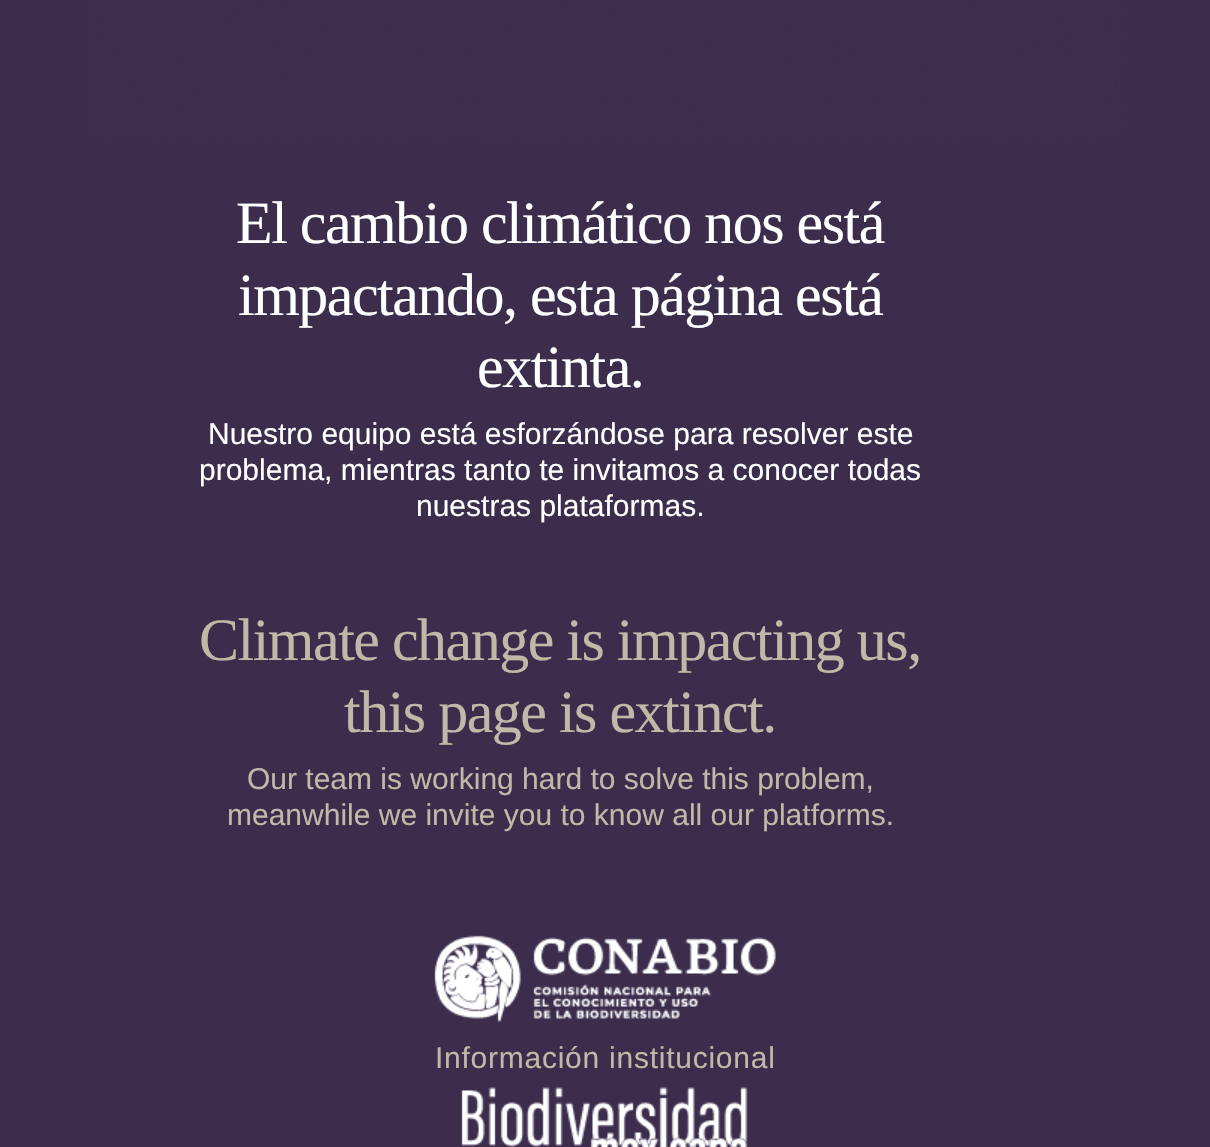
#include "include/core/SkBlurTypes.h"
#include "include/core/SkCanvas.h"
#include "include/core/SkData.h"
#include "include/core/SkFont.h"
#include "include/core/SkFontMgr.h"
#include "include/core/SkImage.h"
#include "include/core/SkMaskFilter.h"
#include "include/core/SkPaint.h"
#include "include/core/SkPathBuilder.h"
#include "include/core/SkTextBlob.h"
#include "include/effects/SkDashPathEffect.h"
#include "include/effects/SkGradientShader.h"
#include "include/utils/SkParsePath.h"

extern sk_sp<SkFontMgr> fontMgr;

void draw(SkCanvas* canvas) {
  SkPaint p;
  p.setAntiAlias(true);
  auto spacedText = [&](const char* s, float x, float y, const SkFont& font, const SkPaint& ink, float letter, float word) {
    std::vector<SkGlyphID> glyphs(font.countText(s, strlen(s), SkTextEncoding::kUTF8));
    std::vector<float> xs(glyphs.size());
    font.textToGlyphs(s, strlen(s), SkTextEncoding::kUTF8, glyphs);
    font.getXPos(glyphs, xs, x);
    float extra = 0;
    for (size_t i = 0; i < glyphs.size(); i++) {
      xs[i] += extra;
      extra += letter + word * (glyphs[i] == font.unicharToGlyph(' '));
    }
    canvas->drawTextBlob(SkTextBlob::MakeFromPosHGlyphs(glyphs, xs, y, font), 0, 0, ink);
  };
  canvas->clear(SkColorSetRGB(60, 45, 76));
  canvas->drawImageRect(SkImages::DeferredFromEncodedData(SkData::MakeFromFileName("images/1.png")), SkRect::MakeLTRB(84, 0, 1125, 142), SkSamplingOptions());
  canvas->drawImageRect(SkImages::DeferredFromEncodedData(SkData::MakeFromFileName("images/2.png")), SkRect::MakeLTRB(434, 935, 776, 1022), SkSamplingOptions());
  canvas->drawImageRect(SkImages::DeferredFromEncodedData(SkData::MakeFromFileName("images/3.png")), SkRect::MakeLTRB(461, 1087, 748, 1147), SkSamplingOptions());
  SkFont font1(fontMgr->matchFamilyStyle("Liberation Serif", SkFontStyle::Normal()), 60);
  font1.setSubpixel(true);
  p.setColor(SK_ColorWHITE);
  spacedText("El cambio climático nos está", 236, 243, font1, p, -1.5f, 0);
  spacedText("impactando, esta página está", 238, 315, font1, p, -1.5f, 0);
  spacedText("extinta.", 477, 387, font1, p, -1.5f, 0);
  SkFont font2(fontMgr->matchFamilyStyle("Liberation Sans", SkFontStyle::Normal()), 30);
  font2.setSubpixel(true);
  canvas->drawString("Nuestro equipo está esforzándose para resolver este", 208, 444, font2, p);
  canvas->drawString("problema, mientras tanto te invitamos a conocer todas", 199, 480, font2, p);
  canvas->drawString("nuestras plataformas.", 416, 516, font2, p);
  p.setColor(SkColorSetRGB(193, 185, 167));
  spacedText("Climate change is impacting us,", 199, 660, font1, p, -1.5f, 0);
  spacedText("this page is extinct.", 344, 732, font1, p, -1.5f, 0);
  canvas->drawString("Our team is working hard to solve this problem,", 247, 789, font2, p);
  canvas->drawString("meanwhile we invite you to know all our platforms.", 227, 825, font2, p);
  spacedText("Información institucional", 435, 1068, font2, p, 0.75f, 0);
}
